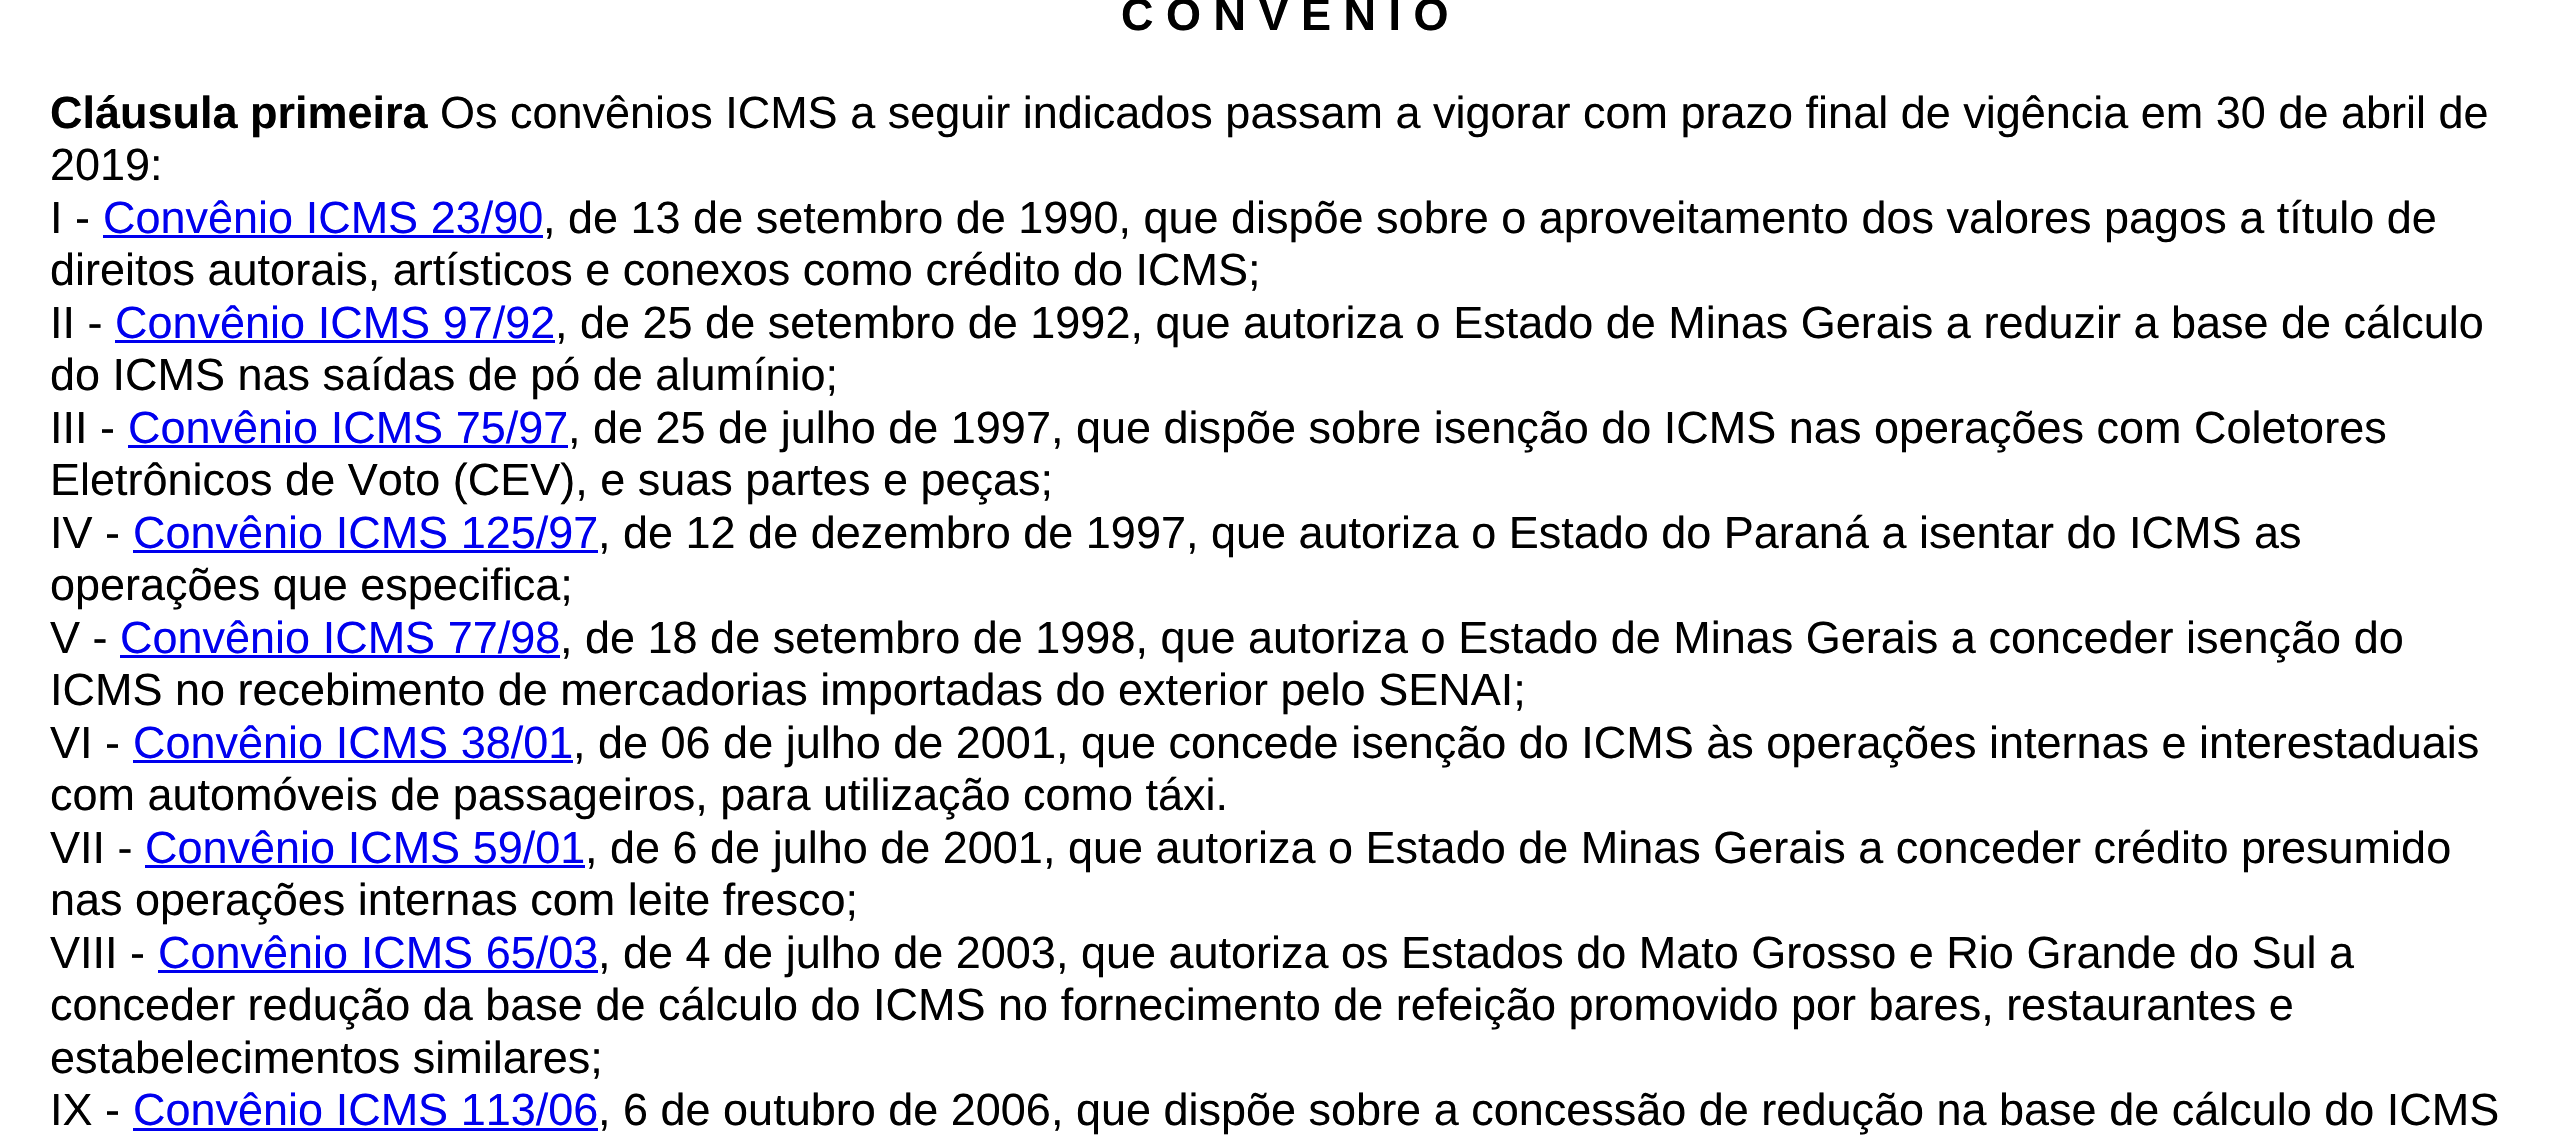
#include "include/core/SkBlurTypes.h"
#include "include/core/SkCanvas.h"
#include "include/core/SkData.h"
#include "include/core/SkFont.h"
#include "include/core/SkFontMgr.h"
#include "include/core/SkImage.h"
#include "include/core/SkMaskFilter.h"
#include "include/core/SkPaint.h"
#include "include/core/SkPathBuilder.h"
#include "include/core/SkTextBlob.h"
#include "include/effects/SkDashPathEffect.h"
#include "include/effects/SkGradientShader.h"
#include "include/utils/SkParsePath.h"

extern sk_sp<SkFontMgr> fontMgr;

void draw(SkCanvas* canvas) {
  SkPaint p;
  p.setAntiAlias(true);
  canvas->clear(SK_ColorWHITE);
  p.setColor(SkColorSetRGB(0, 0, 238));
  canvas->drawRect(SkRect::MakeLTRB(103, 235, 543, 238), p);
  canvas->drawRect(SkRect::MakeLTRB(115, 340, 555, 343), p);
  canvas->drawRect(SkRect::MakeLTRB(128, 445, 568, 448), p);
  canvas->drawRect(SkRect::MakeLTRB(133, 550, 598, 553), p);
  canvas->drawRect(SkRect::MakeLTRB(120, 655, 560, 658), p);
  canvas->drawRect(SkRect::MakeLTRB(133, 760, 573, 763), p);
  canvas->drawRect(SkRect::MakeLTRB(145, 865, 585, 868), p);
  canvas->drawRect(SkRect::MakeLTRB(158, 970, 598, 973), p);
  canvas->drawRect(SkRect::MakeLTRB(133, 1128, 598, 1131), p);
  SkFont font1(fontMgr->matchFamilyStyle("Liberation Sans", SkFontStyle::Bold()), 45);
  font1.setSubpixel(true);
  p.setColor(SK_ColorBLACK);
  canvas->drawString("C O N V Ê N I O", 1121, 30, font1, p);
  canvas->drawString("Cláusula primeira", 50, 128, font1, p);
  SkFont font2(fontMgr->matchFamilyStyle("Liberation Sans", SkFontStyle::Normal()), 45);
  font2.setSubpixel(true);
  canvas->drawString("Os convênios ICMS a seguir indicados passam a vigorar com prazo final de vigência em 30 de abril de", 440, 128, font2, p);
  canvas->drawString("2019:", 50, 180, font2, p);
  canvas->drawString("I -", 50, 233, font2, p);
  p.setColor(SkColorSetRGB(0, 0, 238));
  canvas->drawString("Convênio ICMS 23/90", 103, 233, font2, p);
  p.setColor(SK_ColorBLACK);
  canvas->drawString(", de 13 de setembro de 1990, que dispõe sobre o aproveitamento dos valores pagos a título de", 543, 233, font2, p);
  canvas->drawString("direitos autorais, artísticos e conexos como crédito do ICMS;", 50, 285, font2, p);
  canvas->drawString("II -", 50, 338, font2, p);
  p.setColor(SkColorSetRGB(0, 0, 238));
  canvas->drawString("Convênio ICMS 97/92", 115, 338, font2, p);
  p.setColor(SK_ColorBLACK);
  canvas->drawString(", de 25 de setembro de 1992, que autoriza o Estado de Minas Gerais a reduzir a base de cálculo", 555, 338, font2, p);
  canvas->drawString("do ICMS nas saídas de pó de alumínio;", 50, 390, font2, p);
  canvas->drawString("III -", 50, 443, font2, p);
  p.setColor(SkColorSetRGB(0, 0, 238));
  canvas->drawString("Convênio ICMS 75/97", 128, 443, font2, p);
  p.setColor(SK_ColorBLACK);
  canvas->drawString(", de 25 de julho de 1997, que dispõe sobre isenção do ICMS nas operações com Coletores", 568, 443, font2, p);
  canvas->drawString("Eletrônicos de Voto (CEV), e suas partes e peças;", 50, 495, font2, p);
  canvas->drawString("IV -", 50, 548, font2, p);
  p.setColor(SkColorSetRGB(0, 0, 238));
  canvas->drawString("Convênio ICMS 125/97", 133, 548, font2, p);
  p.setColor(SK_ColorBLACK);
  canvas->drawString(", de 12 de dezembro de 1997, que autoriza o Estado do Paraná a isentar do ICMS as", 598, 548, font2, p);
  canvas->drawString("operações que especifica;", 50, 600, font2, p);
  canvas->drawString("V -", 50, 653, font2, p);
  p.setColor(SkColorSetRGB(0, 0, 238));
  canvas->drawString("Convênio ICMS 77/98", 120, 653, font2, p);
  p.setColor(SK_ColorBLACK);
  canvas->drawString(", de 18 de setembro de 1998, que autoriza o Estado de Minas Gerais a conceder isenção do", 560, 653, font2, p);
  canvas->drawString("ICMS no recebimento de mercadorias importadas do exterior pelo SENAI;", 50, 705, font2, p);
  canvas->drawString("VI -", 50, 758, font2, p);
  p.setColor(SkColorSetRGB(0, 0, 238));
  canvas->drawString("Convênio ICMS 38/01", 133, 758, font2, p);
  p.setColor(SK_ColorBLACK);
  canvas->drawString(", de 06 de julho de 2001, que concede isenção do ICMS às operações internas e interestaduais", 573, 758, font2, p);
  canvas->drawString("com automóveis de passageiros, para utilização como táxi.", 50, 810, font2, p);
  canvas->drawString("VII -", 50, 863, font2, p);
  p.setColor(SkColorSetRGB(0, 0, 238));
  canvas->drawString("Convênio ICMS 59/01", 145, 863, font2, p);
  p.setColor(SK_ColorBLACK);
  canvas->drawString(", de 6 de julho de 2001, que autoriza o Estado de Minas Gerais a conceder crédito presumido", 585, 863, font2, p);
  canvas->drawString("nas operações internas com leite fresco;", 50, 915, font2, p);
  canvas->drawString("VIII -", 50, 968, font2, p);
  p.setColor(SkColorSetRGB(0, 0, 238));
  canvas->drawString("Convênio ICMS 65/03", 158, 968, font2, p);
  p.setColor(SK_ColorBLACK);
  canvas->drawString(", de 4 de julho de 2003, que autoriza os Estados do Mato Grosso e Rio Grande do Sul a", 598, 968, font2, p);
  canvas->drawString("conceder redução da base de cálculo do ICMS no fornecimento de refeição promovido por bares, restaurantes e", 50, 1020, font2, p);
  canvas->drawString("estabelecimentos similares;", 50, 1073, font2, p);
  canvas->drawString("IX -", 50, 1125, font2, p);
  p.setColor(SkColorSetRGB(0, 0, 238));
  canvas->drawString("Convênio ICMS 113/06", 133, 1125, font2, p);
  p.setColor(SK_ColorBLACK);
  canvas->drawString(", 6 de outubro de 2006, que dispõe sobre a concessão de redução na base de cálculo do ICMS", 598, 1125, font2, p);
}
